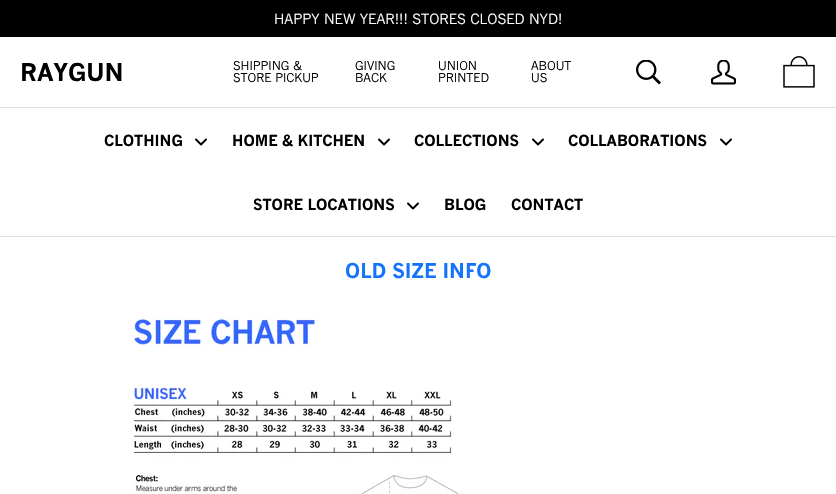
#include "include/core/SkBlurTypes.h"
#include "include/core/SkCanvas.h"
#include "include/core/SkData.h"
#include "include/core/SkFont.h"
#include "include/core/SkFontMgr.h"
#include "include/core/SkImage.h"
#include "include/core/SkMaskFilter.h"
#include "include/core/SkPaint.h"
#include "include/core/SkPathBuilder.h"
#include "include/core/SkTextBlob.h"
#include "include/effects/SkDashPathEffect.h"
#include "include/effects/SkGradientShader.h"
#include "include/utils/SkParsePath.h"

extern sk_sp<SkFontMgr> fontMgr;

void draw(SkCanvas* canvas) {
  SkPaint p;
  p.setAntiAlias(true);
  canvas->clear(SK_ColorWHITE);
  p.setColor(SK_ColorBLACK);
  canvas->drawRect(SkRect::MakeLTRB(0, 0, 836, 37), p);
  p.setColor(SkColorSetRGB(224, 224, 224));
  canvas->drawRect(SkRect::MakeLTRB(0, 236, 836, 237), p);
  canvas->drawImageRect(SkImages::DeferredFromEncodedData(SkData::MakeFromFileName("images/1.png")), SkRect::MakeLTRB(636, 60, 661, 85), SkSamplingOptions());
  canvas->drawImageRect(SkImages::DeferredFromEncodedData(SkData::MakeFromFileName("images/2.png")), SkRect::MakeLTRB(711, 60, 736, 85), SkSamplingOptions());
  canvas->drawImageRect(SkImages::DeferredFromEncodedData(SkData::MakeFromFileName("images/3.png")), SkRect::MakeLTRB(783, 56, 815, 88), SkSamplingOptions());
  canvas->drawRect(SkRect::MakeLTRB(0, 107, 836, 108), p);
  canvas->drawImageRect(SkImages::DeferredFromEncodedData(SkData::MakeFromFileName("images/4.png")), SkRect::MakeLTRB(195, 138, 207, 146), SkSamplingOptions());
  canvas->drawImageRect(SkImages::DeferredFromEncodedData(SkData::MakeFromFileName("images/4.png")), SkRect::MakeLTRB(378, 138, 390, 146), SkSamplingOptions());
  canvas->drawImageRect(SkImages::DeferredFromEncodedData(SkData::MakeFromFileName("images/4.png")), SkRect::MakeLTRB(532, 138, 544, 146), SkSamplingOptions());
  canvas->drawImageRect(SkImages::DeferredFromEncodedData(SkData::MakeFromFileName("images/4.png")), SkRect::MakeLTRB(720, 138, 732, 146), SkSamplingOptions());
  canvas->drawImageRect(SkImages::DeferredFromEncodedData(SkData::MakeFromFileName("images/4.png")), SkRect::MakeLTRB(407, 202, 419, 210), SkSamplingOptions());
  canvas->drawImageRect(SkImages::DeferredFromEncodedData(SkData::MakeFromFileName("images/5.png")), SkRect::MakeLTRB(133, 318, 462, 494), SkSamplingOptions());
  SkFont font1(fontMgr->matchFamilyStyle("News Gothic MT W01", SkFontStyle::Normal()), 14);
  font1.setSubpixel(true);
  p.setColor(SK_ColorWHITE);
  canvas->drawString("HAPPY NEW YEAR!!! STORES CLOSED NYD!", 274, 24, font1, p);
  SkFont font2(fontMgr->matchFamilyStyle("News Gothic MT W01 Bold", SkFontStyle::Bold()), 24);
  font2.setSubpixel(true);
  p.setColor(SK_ColorBLACK);
  canvas->drawString("RAYGUN", 20, 81, font2, p);
  SkFont font3(fontMgr->matchFamilyStyle("News Gothic MT W01", SkFontStyle::Normal()), 12);
  font3.setSubpixel(true);
  canvas->drawString("SHIPPING &", 233, 70, font3, p);
  canvas->drawString("STORE PICKUP", 233, 82, font3, p);
  canvas->drawString("GIVING", 355, 70, font3, p);
  canvas->drawString("BACK", 355, 82, font3, p);
  canvas->drawString("UNION", 438, 70, font3, p);
  canvas->drawString("PRINTED", 438, 82, font3, p);
  canvas->drawString("ABOUT", 531, 70, font3, p);
  canvas->drawString("US", 531, 82, font3, p);
  SkFont font4(fontMgr->matchFamilyStyle("News Gothic MT W01 Bold", SkFontStyle::Bold()), 15);
  font4.setSubpixel(true);
  canvas->drawString("CLOTHING", 104, 146, font4, p);
  canvas->drawString("HOME & KITCHEN", 232, 146, font4, p);
  canvas->drawString("COLLECTIONS", 414, 146, font4, p);
  canvas->drawString("COLLABORATIONS", 568, 146, font4, p);
  canvas->drawString("STORE LOCATIONS", 253, 210, font4, p);
  canvas->drawString("BLOG", 444, 210, font4, p);
  canvas->drawString("CONTACT", 511, 210, font4, p);
  SkFont font5(fontMgr->matchFamilyStyle("News Gothic MT W01 Bold", SkFontStyle::Bold()), 20);
  font5.setSubpixel(true);
  p.setColor(SkColorSetRGB(20, 115, 251));
  canvas->drawString("OLD SIZE INFO", 345, 278, font5, p);
}
